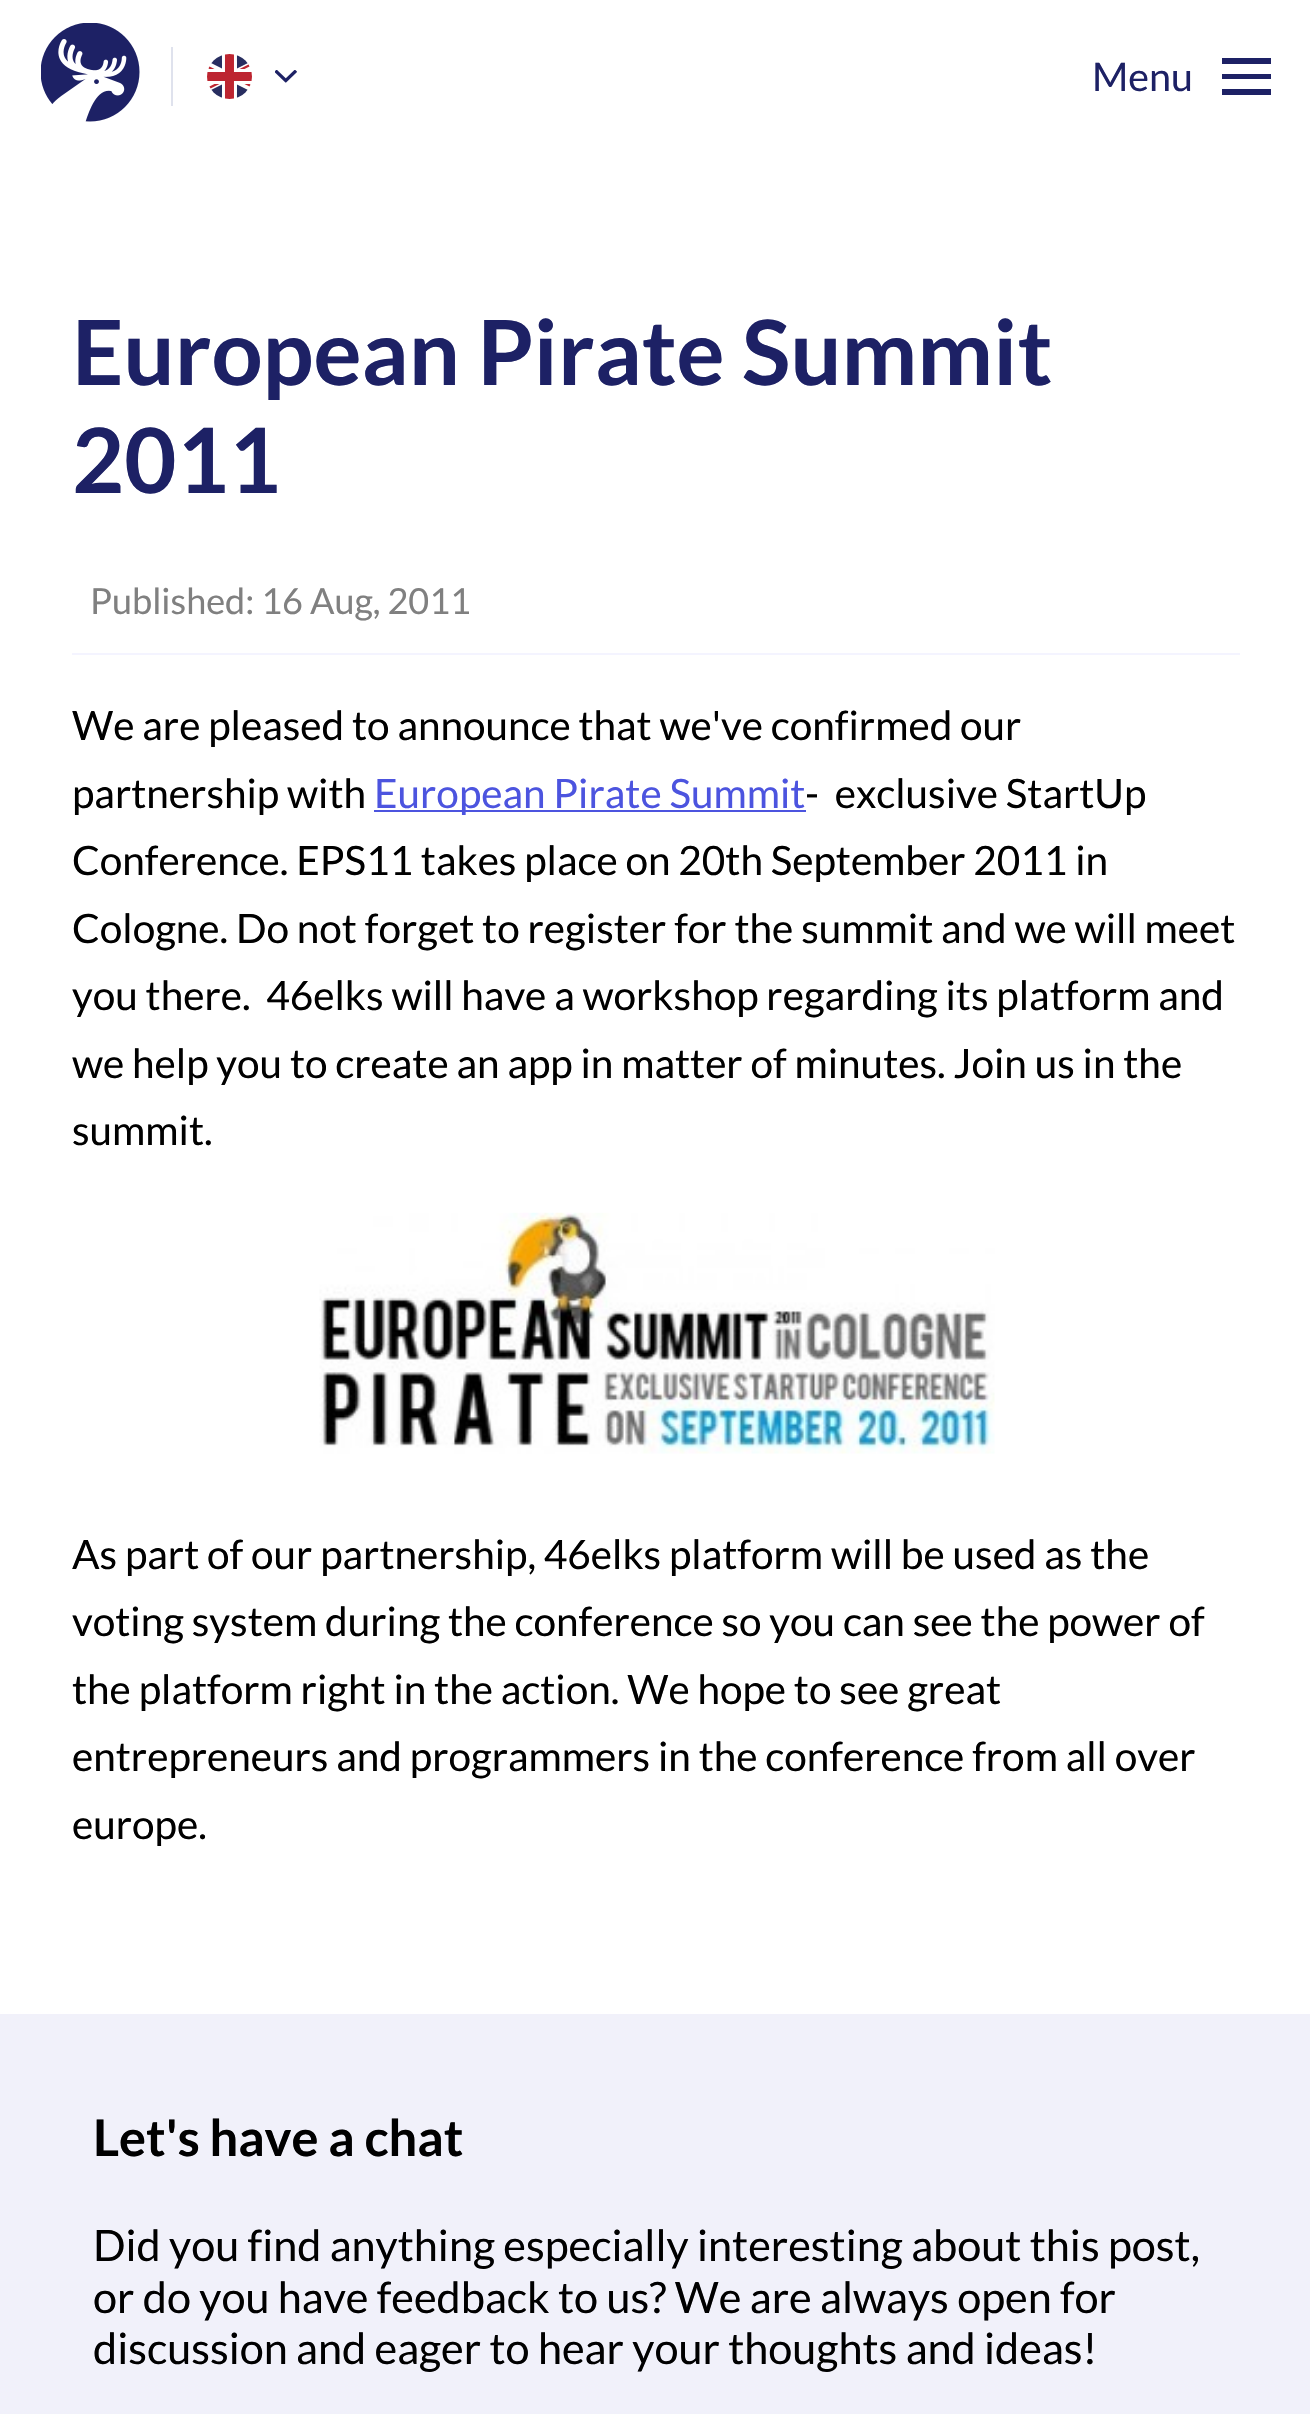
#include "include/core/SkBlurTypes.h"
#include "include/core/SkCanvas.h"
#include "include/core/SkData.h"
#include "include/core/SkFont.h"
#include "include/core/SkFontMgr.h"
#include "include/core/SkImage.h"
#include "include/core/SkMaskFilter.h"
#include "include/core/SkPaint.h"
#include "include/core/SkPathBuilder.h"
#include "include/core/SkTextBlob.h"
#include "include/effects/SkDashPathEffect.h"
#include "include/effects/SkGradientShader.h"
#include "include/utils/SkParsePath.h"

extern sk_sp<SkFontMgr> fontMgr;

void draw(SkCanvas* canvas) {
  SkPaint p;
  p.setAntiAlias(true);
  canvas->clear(SK_ColorWHITE);
  canvas->drawImageRect(SkImages::DeferredFromEncodedData(SkData::MakeFromFileName("images/1.png")), SkRect::MakeLTRB(41, 23, 140, 122), SkSamplingOptions());
  p.setColor(SkColorSetRGB(223, 226, 237));
  canvas->drawRect(SkRect::MakeLTRB(171, 47, 173, 106), p);
  canvas->drawImageRect(SkImages::DeferredFromEncodedData(SkData::MakeFromFileName("images/2.png")), SkRect::MakeLTRB(207, 54, 252, 99), SkSamplingOptions());
  canvas->drawImageRect(SkImages::DeferredFromEncodedData(SkData::MakeFromFileName("images/3.png")), SkRect::MakeLTRB(275, 70, 297, 83), SkSamplingOptions());
  canvas->save();
  canvas->clipRect(SkRect::MakeLTRB(1222, 52, 1271, 101));
  p.setColor(SkColorSetRGB(29, 33, 101));
  canvas->drawPath(SkPathBuilder(SkPathFillType::kEvenOdd).moveTo(1222, 74).lineTo(1273, 74).lineTo(1273, 79).lineTo(1222, 79).close().moveTo(1222, 58).lineTo(1273, 58).lineTo(1273, 64).lineTo(1222, 64).close().moveTo(1222, 89).lineTo(1273, 89).lineTo(1273, 95).lineTo(1222, 95).close().detach(), p);
  canvas->restore();
  p.setColor(SkColorSetRGB(244, 244, 255));
  canvas->drawRect(SkRect::MakeLTRB(72, 653, 1240, 655), p);
  p.setColor(SkColorSetRGB(76, 84, 223));
  canvas->drawRect(SkRect::MakeLTRB(374, 810, 806, 812), p);
  canvas->drawImageRect(SkImages::DeferredFromEncodedData(SkData::MakeFromFileName("images/4.png")), SkRect::MakeLTRB(319, 1212, 995, 1454), SkSamplingOptions());
  p.setColor(SkColorSetRGB(241, 241, 250));
  canvas->drawRect(SkRect::MakeLTRB(0, 2014, 1310, 2414), p);
  SkFont font1(fontMgr->matchFamilyStyle("Lato", SkFontStyle::Normal()), 39.5f);
  font1.setSubpixel(true);
  p.setColor(SkColorSetRGB(29, 33, 101));
  canvas->drawString("Menu", 1092, 91, font1, p);
  SkFont font2(fontMgr->matchFamilyStyle("Lato", SkFontStyle::Bold()), 90);
  font2.setSubpixel(true);
  canvas->drawString("European Pirate Summit", 72, 385, font2, p);
  canvas->drawString("2011", 72, 493, font2, p);
  SkFont font3(fontMgr->matchFamilyStyle("Lato", SkFontStyle::Normal()), 36);
  font3.setSubpixel(true);
  p.setColor(SkColorSetRGB(128, 128, 128));
  canvas->drawString("Published: 16 Aug, 2011", 90, 614, font3, p);
  SkFont font4(fontMgr->matchFamilyStyle("Lato", SkFontStyle::Normal()), 40.5f);
  font4.setSubpixel(true);
  p.setColor(SK_ColorBLACK);
  canvas->drawString("We are pleased to announce that we've confirmed our", 72, 740, font4, p);
  canvas->drawString("partnership with", 72, 808, font4, p);
  p.setColor(SkColorSetRGB(76, 84, 223));
  canvas->drawString("European Pirate Summit", 374, 808, font4, p);
  p.setColor(SK_ColorBLACK);
  canvas->drawString("-  exclusive StartUp", 805, 808, font4, p);
  canvas->drawString("Conference. EPS11 takes place on 20th September 2011 in", 72, 875, font4, p);
  canvas->drawString("Cologne. Do not forget to register for the summit and we will meet", 72, 943, font4, p);
  canvas->drawString("you there.  46elks will have a workshop regarding its platform and", 72, 1010, font4, p);
  canvas->drawString("we help you to create an app in matter of minutes. Join us in the", 72, 1078, font4, p);
  canvas->drawString("summit.", 72, 1145, font4, p);
  canvas->drawString("As part of our partnership, 46elks platform will be used as the", 72, 1569, font4, p);
  canvas->drawString("voting system during the conference so you can see the power of", 72, 1636, font4, p);
  canvas->drawString("the platform right in the action. We hope to see great", 72, 1704, font4, p);
  canvas->drawString("entrepreneurs and programmers in the conference from all over", 72, 1771, font4, p);
  canvas->drawString("europe.", 72, 1839, font4, p);
  SkFont font5(fontMgr->matchFamilyStyle("Lato", SkFontStyle::Bold()), 50.5f);
  font5.setSubpixel(true);
  canvas->drawString("Let's have a chat", 93, 2156, font5, p);
  SkFont font6(fontMgr->matchFamilyStyle("Lato", SkFontStyle::Normal()), 43.2f);
  font6.setSubpixel(true);
  canvas->drawString("Did you find anything especially interesting about this post,", 93, 2261, font6, p);
  canvas->drawString("or do you have feedback to us? We are always open for", 93, 2313, font6, p);
  canvas->drawString("discussion and eager to hear your thoughts and ideas!", 93, 2364, font6, p);
}
